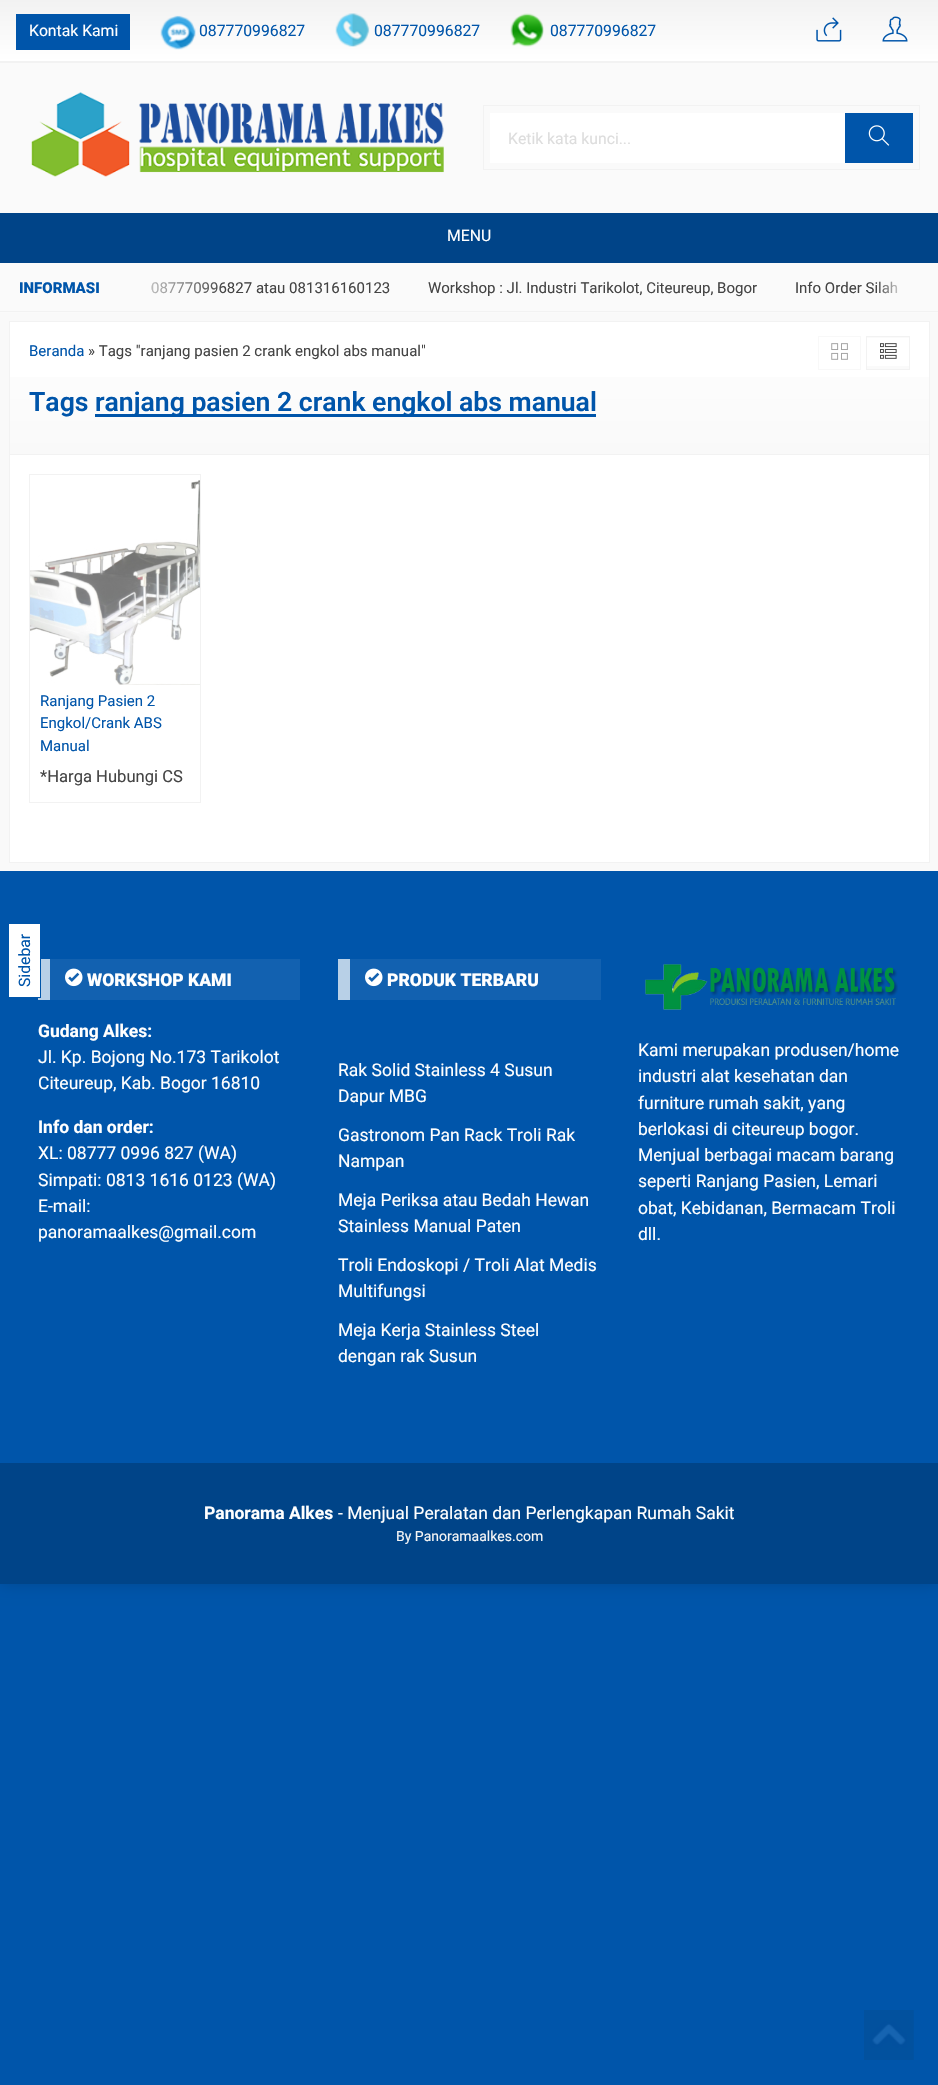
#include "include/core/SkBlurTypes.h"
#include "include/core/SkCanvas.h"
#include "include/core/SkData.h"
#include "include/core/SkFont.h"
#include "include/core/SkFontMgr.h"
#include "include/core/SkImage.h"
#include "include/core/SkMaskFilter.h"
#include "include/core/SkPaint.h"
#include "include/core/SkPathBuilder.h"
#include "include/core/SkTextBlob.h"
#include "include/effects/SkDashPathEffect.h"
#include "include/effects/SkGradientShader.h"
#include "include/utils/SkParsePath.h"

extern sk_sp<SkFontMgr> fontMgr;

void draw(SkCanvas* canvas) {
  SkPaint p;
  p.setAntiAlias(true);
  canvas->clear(SkColorSetRGB(0, 85, 170));
  p.setColor(SkColorSetARGB(38, 0, 0, 0));
  p.setMaskFilter(SkMaskFilter::MakeBlur(kNormal_SkBlurStyle, 7.5f));
  canvas->drawRect(SkRect::MakeLTRB(0, 0, 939, 1584), p);
  p.setMaskFilter(nullptr);
  {
    const SkColor colors[] = {SkColorSetRGB(242, 242, 242), SK_ColorWHITE};
    const float stops[] = {0, 1};
    const SkPoint ends[] = {{469, 0}, {469, 61}};
    p.setShader(SkGradientShader::MakeLinear(ends, colors, stops, 2, SkTileMode::kClamp));
    p.setAlpha(255);
  }
  canvas->drawRect(SkRect::MakeLTRB(0, 0, 938, 61), p);
  {
    const SkColor colors[] = {SkColorSetRGB(242, 242, 242), SK_ColorWHITE};
    const float stops[] = {0, 1};
    const SkPoint ends[] = {{469, 61}, {469, 123}};
    p.setShader(SkGradientShader::MakeLinear(ends, colors, stops, 2, SkTileMode::kClamp));
    p.setAlpha(255);
  }
  canvas->drawRect(SkRect::MakeLTRB(0, 61, 938, 63), p);
  p.setShader(nullptr);
  p.setColor(SkColorSetRGB(0, 85, 170));
  canvas->drawRect(SkRect::MakeLTRB(16, 14, 130, 50), p);
  canvas->drawImageRect(SkImages::DeferredFromEncodedData(SkData::MakeFromFileName("images/1.png")), SkRect::MakeLTRB(160, 15, 196, 50), SkSamplingOptions());
  canvas->drawImageRect(SkImages::DeferredFromEncodedData(SkData::MakeFromFileName("images/2.png")), SkRect::MakeLTRB(335, 13, 370, 47), SkSamplingOptions());
  canvas->drawImageRect(SkImages::DeferredFromEncodedData(SkData::MakeFromFileName("images/3.png")), SkRect::MakeLTRB(510, 13, 544, 47), SkSamplingOptions());
  canvas->drawImageRect(SkImages::DeferredFromEncodedData(SkData::MakeFromFileName("images/4.png")), SkRect::MakeLTRB(816, 17, 842, 42), SkSamplingOptions());
  canvas->drawImageRect(SkImages::DeferredFromEncodedData(SkData::MakeFromFileName("images/5.png")), SkRect::MakeLTRB(882, 16, 908, 42), SkSamplingOptions());
  p.setColor(SkColorSetRGB(250, 250, 250));
  canvas->drawRect(SkRect::MakeLTRB(0, 63, 938, 213), p);
  canvas->drawImageRect(SkImages::DeferredFromEncodedData(SkData::MakeFromFileName("images/6.png")), SkRect::MakeLTRB(31, 92, 444, 177), SkSamplingOptions());
  p.setStyle(SkPaint::kStroke_Style);
  p.setStrokeWidth(1);
  p.setColor(SkColorSetRGB(242, 242, 242));
  canvas->drawRect(SkRect::MakeLTRB(483.5f, 105.5f, 919.5f, 169.5f), p);
  p.setStyle(SkPaint::kFill_Style);
  p.setColor(SK_ColorWHITE);
  canvas->drawRect(SkRect::MakeLTRB(490, 113, 845, 163), p);
  p.setColor(SkColorSetRGB(0, 85, 170));
  canvas->drawRect(SkRect::MakeLTRB(845, 113, 913, 163), p);
  canvas->drawImageRect(SkImages::DeferredFromEncodedData(SkData::MakeFromFileName("images/7.png")), SkRect::MakeLTRB(868, 125, 890, 146), SkSamplingOptions());
  p.setColor(SkColorSetRGB(0, 68, 136));
  canvas->drawRect(SkRect::MakeLTRB(0, 213, 938, 263), p);
  p.setColor(SkColorSetRGB(250, 250, 250));
  canvas->drawRect(SkRect::MakeLTRB(0, 263, 938, 313), p);
  p.setColor(SkColorSetRGB(242, 242, 242));
  canvas->drawRect(SkRect::MakeLTRB(0, 311, 938, 312), p);
  p.setColor(SkColorSetRGB(249, 249, 249));
  canvas->drawRect(SkRect::MakeLTRB(0, 313, 938, 871), p);
  p.setColor(SK_ColorWHITE);
  canvas->drawRect(SkRect::MakeLTRB(9.5f, 321.5f, 929.5f, 862.5f), p);
  p.setStyle(SkPaint::kStroke_Style);
  p.setColor(SkColorSetRGB(242, 242, 242));
  canvas->drawRect(SkRect::MakeLTRB(9.5f, 321.5f, 929.5f, 862.5f), p);
  p.setStyle(SkPaint::kFill_Style);
  {
    const SkColor colors[] = {SK_ColorWHITE, SkColorSetRGB(249, 249, 249)};
    const float stops[] = {0, 1};
    const SkPoint ends[] = {{469, 322}, {469, 454}};
    p.setShader(SkGradientShader::MakeLinear(ends, colors, stops, 2, SkTileMode::kClamp));
    p.setAlpha(255);
  }
  canvas->drawRect(SkRect::MakeLTRB(10, 377, 929, 454), p);
  p.setShader(nullptr);
  p.setColor(SkColorSetRGB(242, 242, 242));
  canvas->drawRect(SkRect::MakeLTRB(10, 454, 929, 455), p);
  p.setStyle(SkPaint::kStroke_Style);
  p.setColor(SkColorSetRGB(248, 248, 248));
  canvas->drawRect(SkRect::MakeLTRB(818.5f, 336.5f, 860.5f, 369.5f), p);
  p.setStyle(SkPaint::kFill_Style);
  {
    const SkColor colors[] = {SkColorSetRGB(250, 250, 250), SK_ColorWHITE};
    const float stops[] = {0, 1};
    const SkPoint ends[] = {{888, 338}, {888, 306}};
    p.setShader(SkGradientShader::MakeLinear(ends, colors, stops, 2, SkTileMode::kClamp));
    p.setAlpha(255);
  }
  canvas->drawRect(SkRect::MakeLTRB(866, 337, 910, 338), p);
  {
    const SkColor colors[] = {SkColorSetRGB(250, 250, 250), SK_ColorWHITE};
    const float stops[] = {0, 1};
    const SkPoint ends[] = {{888, 369}, {888, 338}};
    p.setShader(SkGradientShader::MakeLinear(ends, colors, stops, 2, SkTileMode::kClamp));
    p.setAlpha(255);
  }
  canvas->drawRect(SkRect::MakeLTRB(867, 366, 909, 369), p);
  p.setStyle(SkPaint::kStroke_Style);
  p.setShader(nullptr);
  p.setColor(SkColorSetRGB(242, 242, 242));
  canvas->drawRect(SkRect::MakeLTRB(866.5f, 336.5f, 909.5f, 369.5f), p);
  canvas->drawImageRect(SkImages::DeferredFromEncodedData(SkData::MakeFromFileName("images/8.png")), SkRect::MakeLTRB(831, 343, 848, 360), SkSamplingOptions());
  canvas->drawImageRect(SkImages::DeferredFromEncodedData(SkData::MakeFromFileName("images/9.png")), SkRect::MakeLTRB(880, 343, 897, 359), SkSamplingOptions());
  p.setStyle(SkPaint::kFill_Style);
  p.setColor(SkColorSetRGB(0, 85, 170));
  canvas->drawRect(SkRect::MakeLTRB(95, 414, 596, 417), p);
  p.setStyle(SkPaint::kStroke_Style);
  p.setColor(SkColorSetRGB(242, 242, 242));
  canvas->drawRect(SkRect::MakeLTRB(29.5f, 474.5f, 200.5f, 802.5f), p);
  canvas->drawImageRect(SkImages::DeferredFromEncodedData(SkData::MakeFromFileName("images/10.png")), SkRect::MakeLTRB(30, 480, 200, 685), SkSamplingOptions());
  p.setStyle(SkPaint::kFill_Style);
  p.setColor(SkColorSetRGB(0, 85, 170));
  canvas->drawRect(SkRect::MakeLTRB(0, 871, 938, 1463), p);
  p.setColor(SkColorSetRGB(184, 208, 231));
  canvas->drawRect(SkRect::MakeLTRB(38, 959, 50, 1000), p);
  p.setColor(SK_ColorWHITE);
  canvas->drawRect(SkRect::MakeLTRB(9, 924, 40, 997), p);
  p.setColor(SkColorSetRGB(0, 85, 170));
  canvas->drawRect(SkRect::MakeLTRB(40, 959, 41, 998), p);
  canvas->drawRect(SkRect::MakeLTRB(38, 997, 41, 998), p);
  p.setColor(SkColorSetRGB(18, 97, 176));
  canvas->drawRect(SkRect::MakeLTRB(50, 959, 300, 1000), p);
  canvas->drawImageRect(SkImages::DeferredFromEncodedData(SkData::MakeFromFileName("images/11.png")), SkRect::MakeLTRB(65, 968, 83, 987), SkSamplingOptions());
  canvas->drawRect(SkRect::MakeLTRB(350, 959, 601, 1000), p);
  p.setColor(SkColorSetRGB(184, 208, 231));
  canvas->drawRect(SkRect::MakeLTRB(338, 959, 350, 1000), p);
  canvas->drawImageRect(SkImages::DeferredFromEncodedData(SkData::MakeFromFileName("images/11.png")), SkRect::MakeLTRB(365, 968, 383, 987), SkSamplingOptions());
  canvas->drawImageRect(SkImages::DeferredFromEncodedData(SkData::MakeFromFileName("images/12.png")), SkRect::MakeLTRB(645, 964, 898, 1010), SkSamplingOptions());
  p.setColor(SkColorSetRGB(0, 68, 136));
  canvas->drawRect(SkRect::MakeLTRB(0, 1463, 938, 1584), p);
  canvas->drawImageRect(SkImages::DeferredFromEncodedData(SkData::MakeFromFileName("images/13.png")), SkRect::MakeLTRB(864, 2010, 914, 2060), SkSamplingOptions());
  SkFont font1(fontMgr->matchFamilyStyle("Roboto", SkFontStyle::Normal()), 15.75f);
  font1.setSubpixel(true);
  p.setColor(SK_ColorWHITE);
  canvas->drawString("Kontak Kami", 29, 36, font1, p);
  p.setColor(SkColorSetRGB(0, 85, 170));
  canvas->drawString("087770996827", 199, 36, font1, p);
  canvas->drawString("087770996827", 374, 36, font1, p);
  canvas->drawString("087770996827", 550, 36, font1, p);
  p.setColor(SkColorSetRGB(221, 221, 221));
  canvas->drawString("Ketik kata kunci...", 508, 144, font1, p);
  p.setColor(SK_ColorWHITE);
  canvas->drawString("MENU", 447, 241, font1, p);
  SkFont font2(fontMgr->matchFamilyStyle("Roboto", SkFontStyle::Normal()), 15);
  font2.setSubpixel(true);
  p.setColor(SkColorSetRGB(68, 68, 68));
  canvas->drawString("087770996827 atau 081316160123", 151, 293, font2, p);
  canvas->drawString("Workshop : Jl. Industri Tarikolot, Citeureup, Bogor", 428, 293, font2, p);
  canvas->drawString("Info Order Silah", 795, 293, font2, p);
  {
    const SkColor colors[] = {SkColorSetRGB(250, 250, 250), SkColorSetRGB(250, 250, 250), SkColorSetARGB(0, 250, 250, 250)};
    const float stops[] = {0, 0.5f, 1};
    const SkPoint ends[] = {{0, 288}, {225, 288}};
    p.setShader(SkGradientShader::MakeLinear(ends, colors, stops, 3, SkTileMode::kClamp));
    p.setAlpha(255);
  }
  canvas->drawRect(SkRect::MakeLTRB(152, 282, 223, 294), p);
  SkFont font3(fontMgr->matchFamilyStyle("Roboto", SkFontStyle(900, SkFontStyle::kNormal_Width, SkFontStyle::kUpright_Slant)), 15);
  font3.setSubpixel(true);
  p.setShader(nullptr);
  p.setColor(SkColorSetRGB(0, 85, 170));
  canvas->drawString("INFORMASI", 19, 293, font3, p);
  {
    const SkColor colors[] = {SkColorSetRGB(250, 250, 250), SkColorSetRGB(250, 250, 250), SkColorSetARGB(0, 250, 250, 250)};
    const float stops[] = {0, 0.5f, 1};
    const SkPoint ends[] = {{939, 288}, {876, 288}};
    p.setShader(SkGradientShader::MakeLinear(ends, colors, stops, 3, SkTileMode::kClamp));
    p.setAlpha(255);
  }
  canvas->drawRect(SkRect::MakeLTRB(879, 281, 897, 294), p);
  p.setShader(nullptr);
  p.setColor(SkColorSetRGB(0, 85, 170));
  canvas->drawString("Beranda", 29, 356, font2, p);
  p.setColor(SkColorSetRGB(68, 68, 68));
  canvas->drawString("» Tags \"ranjang pasien 2 crank engkol abs manual\"", 88, 356, font2, p);
  SkFont font4(fontMgr->matchFamilyStyle("Roboto", SkFontStyle(600, SkFontStyle::kNormal_Width, SkFontStyle::kUpright_Slant)), 26.6f);
  font4.setSubpixel(true);
  p.setColor(SkColorSetRGB(0, 85, 170));
  canvas->drawString("Tags", 29, 411, font4, p);
  canvas->drawString("ranjang pasien 2 crank engkol abs manual", 95, 411, font4, p);
  canvas->drawString("Ranjang Pasien 2", 40, 706, font2, p);
  canvas->drawString("Engkol/Crank ABS", 40, 728, font2, p);
  canvas->drawString("Manual", 40, 751, font2, p);
  SkFont font5(fontMgr->matchFamilyStyle("Roboto", SkFontStyle::Normal()), 16.6f);
  font5.setSubpixel(true);
  p.setColor(SkColorSetRGB(68, 68, 68));
  canvas->drawString("*Harga Hubungi CS", 40, 782, font5, p);
  p.setColor(SkColorSetRGB(0, 85, 170));
  canvas->save();
  canvas->rotate(-90, 30, 987);
  canvas->drawString("Sidebar", 30, 987, font1, p);
  canvas->restore();
  SkFont font6(fontMgr->matchFamilyStyle("Roboto", SkFontStyle(900, SkFontStyle::kNormal_Width, SkFontStyle::kUpright_Slant)), 17.5f);
  font6.setSubpixel(true);
  p.setColor(SK_ColorWHITE);
  canvas->drawString("WORKSHOP KAMI", 87, 986, font6, p);
  SkFont font7(fontMgr->matchFamilyStyle("Roboto", SkFontStyle::Bold()), 17.5f);
  font7.setSubpixel(true);
  canvas->drawString("Gudang Alkes:", 38, 1037, font7, p);
  SkFont font8(fontMgr->matchFamilyStyle("Roboto", SkFontStyle::Normal()), 17.5f);
  font8.setSubpixel(true);
  canvas->drawString("Jl. Kp. Bojong No.173 Tarikolot", 38, 1063, font8, p);
  canvas->drawString("Citeureup, Kab. Bogor 16810", 38, 1089, font8, p);
  canvas->drawString("Info dan order:", 38, 1133, font7, p);
  canvas->drawString("XL: 08777 0996 827 (WA)", 38, 1159, font8, p);
  canvas->drawString("Simpati: 0813 1616 0123 (WA)", 38, 1186, font8, p);
  canvas->drawString("E-mail:", 38, 1212, font8, p);
  canvas->drawString("panoramaalkes@gmail.com", 38, 1238, font8, p);
  canvas->drawString("PRODUK TERBARU", 387, 986, font6, p);
  canvas->drawString("Rak Solid Stainless 4 Susun", 338, 1076, font8, p);
  canvas->drawString("Dapur MBG", 338, 1102, font8, p);
  canvas->drawString("Gastronom Pan Rack Troli Rak", 338, 1141, font8, p);
  canvas->drawString("Nampan", 338, 1167, font8, p);
  canvas->drawString("Meja Periksa atau Bedah Hewan", 338, 1206, font8, p);
  canvas->drawString("Stainless Manual Paten", 338, 1232, font8, p);
  canvas->drawString("Troli Endoskopi / Troli Alat Medis", 338, 1271, font8, p);
  canvas->drawString("Multifungsi", 338, 1297, font8, p);
  canvas->drawString("Meja Kerja Stainless Steel", 338, 1336, font8, p);
  canvas->drawString("dengan rak Susun", 338, 1362, font8, p);
  canvas->drawString("Kami merupakan produsen/home", 638, 1056, font8, p);
  canvas->drawString("industri alat kesehatan dan", 638, 1082, font8, p);
  canvas->drawString("furniture rumah sakit, yang", 638, 1109, font8, p);
  canvas->drawString("berlokasi di citeureup bogor.", 638, 1135, font8, p);
  canvas->drawString("Menjual berbagai macam barang", 638, 1161, font8, p);
  canvas->drawString("seperti Ranjang Pasien, Lemari", 638, 1187, font8, p);
  canvas->drawString("obat, Kebidanan, Bermacam Troli", 638, 1214, font8, p);
  canvas->drawString("dll.", 638, 1240, font8, p);
  canvas->drawString("Panorama Alkes", 204, 1519, font7, p);
  canvas->drawString("- Menjual Peralatan dan Perlengkapan Rumah Sakit", 338, 1519, font8, p);
  SkFont font9(fontMgr->matchFamilyStyle("Roboto", SkFontStyle::Normal()), 14);
  font9.setSubpixel(true);
  p.setColor(SkColorSetRGB(245, 245, 245));
  canvas->drawString("By Panoramaalkes.com", 396, 1541, font9, p);
}
